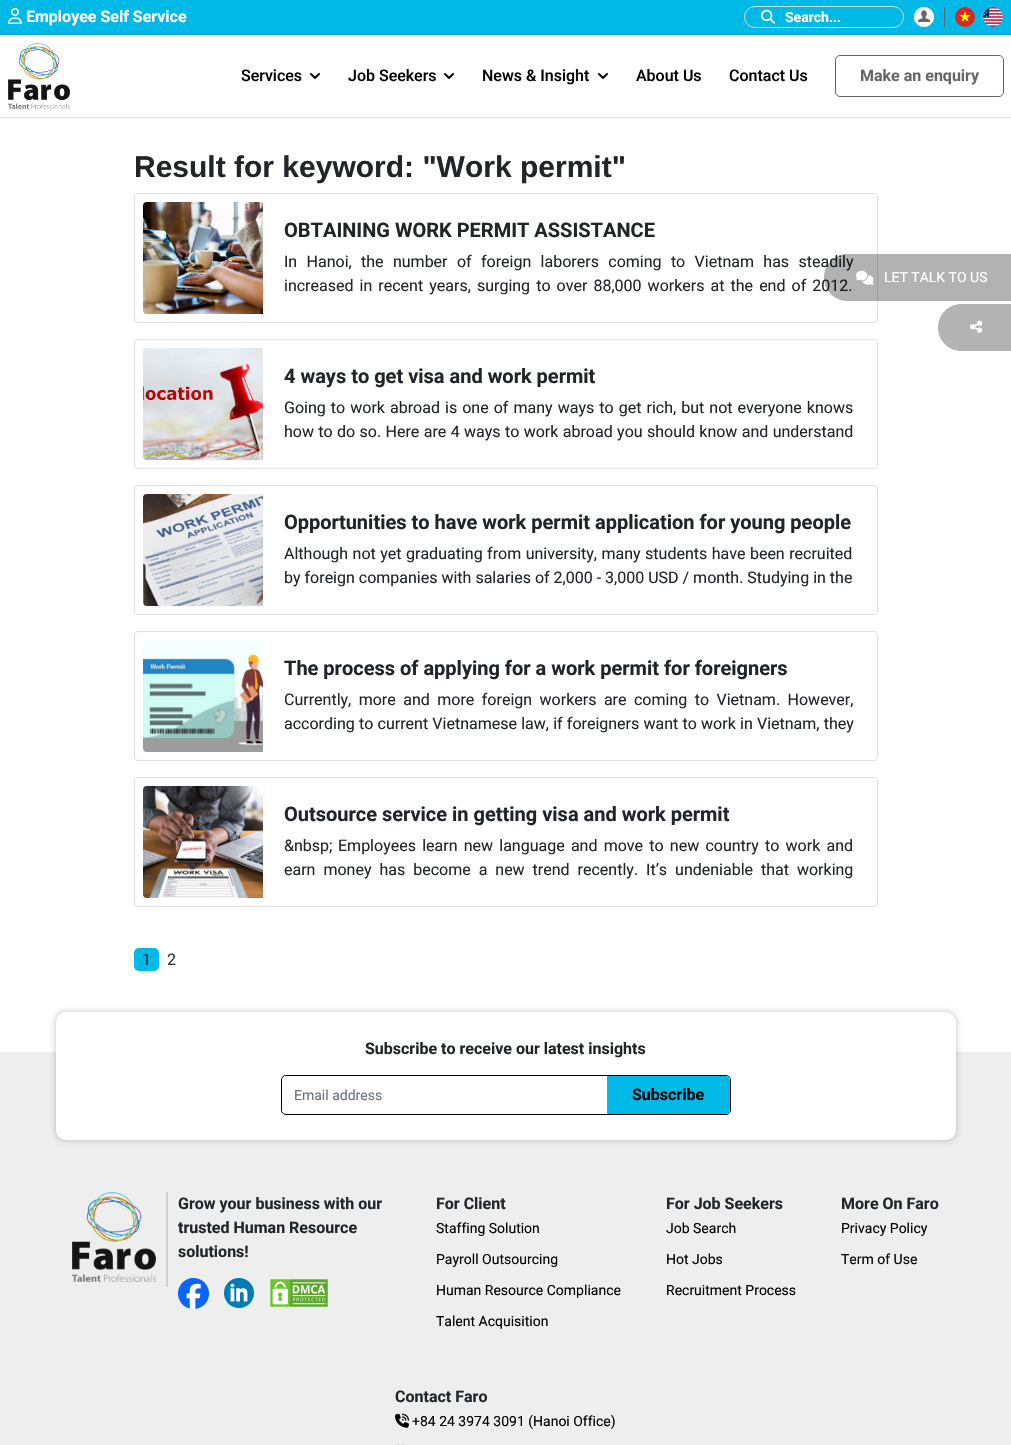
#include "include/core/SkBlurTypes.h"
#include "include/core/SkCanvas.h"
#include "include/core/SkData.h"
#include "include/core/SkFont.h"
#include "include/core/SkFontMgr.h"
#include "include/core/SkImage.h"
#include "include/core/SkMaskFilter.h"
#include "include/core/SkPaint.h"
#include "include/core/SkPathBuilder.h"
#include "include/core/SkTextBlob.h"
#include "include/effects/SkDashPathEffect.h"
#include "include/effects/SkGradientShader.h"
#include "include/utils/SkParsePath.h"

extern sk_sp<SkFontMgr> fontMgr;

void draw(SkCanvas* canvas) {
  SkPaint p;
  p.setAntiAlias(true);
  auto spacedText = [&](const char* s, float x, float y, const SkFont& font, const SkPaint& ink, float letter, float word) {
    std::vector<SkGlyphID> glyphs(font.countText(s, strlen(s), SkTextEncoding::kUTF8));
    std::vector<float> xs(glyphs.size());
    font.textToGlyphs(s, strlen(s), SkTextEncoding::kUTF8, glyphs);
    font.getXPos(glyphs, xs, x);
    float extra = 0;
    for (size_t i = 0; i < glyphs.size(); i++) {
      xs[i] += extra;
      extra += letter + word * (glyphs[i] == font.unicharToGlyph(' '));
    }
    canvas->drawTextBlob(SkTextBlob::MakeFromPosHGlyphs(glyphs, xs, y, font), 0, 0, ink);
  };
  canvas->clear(SK_ColorWHITE);
  p.setColor(SkColorSetRGB(0, 185, 231));
  canvas->drawRect(SkRect::MakeLTRB(0, 0, 1011, 35), p);
  canvas->drawImageRect(SkImages::DeferredFromEncodedData(SkData::MakeFromFileName("images/1.png")), SkRect::MakeLTRB(8, 8, 22, 24), SkSamplingOptions());
  p.setStyle(SkPaint::kStroke_Style);
  p.setStrokeWidth(1);
  p.setColor(SkColorSetRGB(217, 217, 217));
  canvas->drawRoundRect(SkRect::MakeLTRB(744.5f, 6.5f, 903.5f, 27.5f), 10.5f, 10.5f, p);
  canvas->drawImageRect(SkImages::DeferredFromEncodedData(SkData::MakeFromFileName("images/2.png")), SkRect::MakeLTRB(761, 9, 775, 24), SkSamplingOptions());
  canvas->drawImageRect(SkImages::DeferredFromEncodedData(SkData::MakeFromFileName("images/3.png")), SkRect::MakeLTRB(914, 7, 934, 27), SkSamplingOptions());
  p.setStyle(SkPaint::kFill_Style);
  p.setColor(SkColorSetRGB(102, 102, 102));
  canvas->drawRect(SkRect::MakeLTRB(944, 7, 945, 27), p);
  canvas->drawImageRect(SkImages::DeferredFromEncodedData(SkData::MakeFromFileName("images/4.png")), SkRect::MakeLTRB(955, 7, 975, 27), SkSamplingOptions());
  canvas->drawImageRect(SkImages::DeferredFromEncodedData(SkData::MakeFromFileName("images/5.png")), SkRect::MakeLTRB(983, 7, 1003, 27), SkSamplingOptions());
  canvas->save();
  canvas->clipPath(SkPathBuilder(SkPathFillType::kEvenOdd).moveTo(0, 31).lineTo(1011, 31).lineTo(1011, 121).lineTo(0, 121).close().moveTo(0, 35).lineTo(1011, 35).lineTo(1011, 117).lineTo(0, 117).close().detach(), true);
  p.setColor(SkColorSetARGB(51, 99, 99, 99));
  p.setMaskFilter(SkMaskFilter::MakeBlur(kNormal_SkBlurStyle, 0.5f));
  canvas->drawRect(SkRect::MakeLTRB(-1, 34, 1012, 118), p);
  p.setMaskFilter(nullptr);
  canvas->restore();
  canvas->drawImageRect(SkImages::DeferredFromEncodedData(SkData::MakeFromFileName("images/6.png")), SkRect::MakeLTRB(8, 43, 70, 109), SkSamplingOptions());
  p.setStyle(SkPaint::kStroke_Style);
  p.setStrokeWidth(2);
  p.setStrokeCap(SkPaint::kRound_Cap);
  p.setStrokeJoin(SkPaint::kRound_Join);
  p.setColor(SK_ColorBLACK);
  canvas->drawPath(SkPathBuilder().moveTo(311, 74).lineTo(315, 78).lineTo(319, 74).detach(), p);
  canvas->drawPath(SkPathBuilder().moveTo(445, 74).lineTo(449, 78).lineTo(453, 74).detach(), p);
  canvas->drawPath(SkPathBuilder().moveTo(599, 74).lineTo(603, 78).lineTo(607, 74).detach(), p);
  p.setStrokeWidth(1);
  p.setStrokeCap(SkPaint::kButt_Cap);
  p.setStrokeJoin(SkPaint::kMiter_Join);
  p.setColor(SkColorSetRGB(102, 102, 102));
  canvas->drawRoundRect(SkRect::MakeLTRB(835.5f, 55.5f, 1003.5f, 96.5f), 4.5f, 4.5f, p);
  p.setStyle(SkPaint::kFill_Style);
  p.setColor(SkColorSetRGB(179, 179, 179));
  canvas->drawPath(SkPathBuilder().moveTo(961.5f, 304).lineTo(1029, 304).lineTo(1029, 351).lineTo(961.5f, 351).cubicTo(948.5f, 351, 938, 340.5f, 938, 327.5f).cubicTo(938, 314.5f, 948.5f, 304, 961.5f, 304).close().detach(), p);
  canvas->drawImageRect(SkImages::DeferredFromEncodedData(SkData::MakeFromFileName("images/8.png")), SkRect::MakeLTRB(970, 320, 983, 333), SkSamplingOptions());
  p.setStyle(SkPaint::kStroke_Style);
  p.setColor(SkColorSetRGB(223, 223, 223));
  canvas->drawRoundRect(SkRect::MakeLTRB(134.5f, 193.5f, 877.5f, 322.5f), 3.5f, 3.5f, p);
  canvas->drawImageRect(SkImages::DeferredFromEncodedData(SkData::MakeFromFileName("images/9.png")), SkRect::MakeLTRB(143, 202, 263, 314), SkSamplingOptions());
  canvas->drawRoundRect(SkRect::MakeLTRB(134.5f, 339.5f, 877.5f, 468.5f), 3.5f, 3.5f, p);
  canvas->drawImageRect(SkImages::DeferredFromEncodedData(SkData::MakeFromFileName("images/10.png")), SkRect::MakeLTRB(143, 348, 263, 460), SkSamplingOptions());
  canvas->drawRoundRect(SkRect::MakeLTRB(134.5f, 485.5f, 877.5f, 614.5f), 3.5f, 3.5f, p);
  canvas->drawImageRect(SkImages::DeferredFromEncodedData(SkData::MakeFromFileName("images/11.png")), SkRect::MakeLTRB(143, 494, 263, 606), SkSamplingOptions());
  canvas->drawRoundRect(SkRect::MakeLTRB(134.5f, 631.5f, 877.5f, 760.5f), 3.5f, 3.5f, p);
  canvas->drawImageRect(SkImages::DeferredFromEncodedData(SkData::MakeFromFileName("images/12.png")), SkRect::MakeLTRB(143, 640, 263, 752), SkSamplingOptions());
  canvas->drawRoundRect(SkRect::MakeLTRB(134.5f, 777.5f, 877.5f, 906.5f), 3.5f, 3.5f, p);
  canvas->drawImageRect(SkImages::DeferredFromEncodedData(SkData::MakeFromFileName("images/13.png")), SkRect::MakeLTRB(143, 786, 263, 898), SkSamplingOptions());
  p.setStyle(SkPaint::kFill_Style);
  p.setColor(SkColorSetRGB(0, 185, 231));
  canvas->drawRoundRect(SkRect::MakeLTRB(134, 948, 159, 971), 5, 5, p);
  p.setColor(SkColorSetRGB(238, 238, 238));
  canvas->drawRect(SkRect::MakeLTRB(0, 1052, 1011, 1445), p);
  p.setColor(SkColorSetARGB(64, 0, 0, 0));
  p.setMaskFilter(SkMaskFilter::MakeBlur(kNormal_SkBlurStyle, 3));
  canvas->drawRoundRect(SkRect::MakeLTRB(56, 1012, 956, 1140), 10, 10, p);
  p.setMaskFilter(nullptr);
  p.setColor(SK_ColorWHITE);
  canvas->drawRoundRect(SkRect::MakeLTRB(56, 1012, 956, 1140), 10, 10, p);
  p.setStyle(SkPaint::kStroke_Style);
  p.setColor(SK_ColorBLACK);
  canvas->drawRoundRect(SkRect::MakeLTRB(281.5f, 1075.5f, 730.5f, 1114.5f), 4.5f, 4.5f, p);
  p.setStyle(SkPaint::kFill_Style);
  p.setColor(SK_ColorWHITE);
  canvas->drawRoundRect(SkRect::MakeLTRB(282, 1076, 607, 1114), 5, 5, p);
  p.setColor(SkColorSetRGB(0, 185, 231));
  canvas->drawPath(SkPathBuilder().moveTo(607, 1076).lineTo(725, 1076).cubicTo(728, 1076, 730, 1078, 730, 1081).lineTo(730, 1109).cubicTo(730, 1112, 728, 1114, 725, 1114).lineTo(607, 1114).close().detach(), p);
  canvas->drawImageRect(SkImages::DeferredFromEncodedData(SkData::MakeFromFileName("images/14.png")), SkRect::MakeLTRB(72, 1192, 156, 1282), SkSamplingOptions());
  p.setColor(SkColorSetRGB(209, 205, 205));
  canvas->drawRect(SkRect::MakeLTRB(166, 1192, 168, 1287), p);
  canvas->drawImageRect(SkImages::DeferredFromEncodedData(SkData::MakeFromFileName("images/15.png")), SkRect::MakeLTRB(178, 1278, 209, 1309), SkSamplingOptions());
  canvas->drawImageRect(SkImages::DeferredFromEncodedData(SkData::MakeFromFileName("images/16.png")), SkRect::MakeLTRB(224, 1278, 254, 1308), SkSamplingOptions());
  canvas->drawImageRect(SkImages::DeferredFromEncodedData(SkData::MakeFromFileName("images/17.png")), SkRect::MakeLTRB(270, 1279, 328, 1307), SkSamplingOptions());
  canvas->drawImageRect(SkImages::DeferredFromEncodedData(SkData::MakeFromFileName("images/18.png")), SkRect::MakeLTRB(395, 1413, 409, 1428), SkSamplingOptions());
  canvas->drawImageRect(SkImages::DeferredFromEncodedData(SkData::MakeFromFileName("images/19.png")), SkRect::MakeLTRB(397, 1444, 404, 1445), SkSamplingOptions());
  SkFont font1(fontMgr->matchFamilyStyle("Roboto", SkFontStyle::Bold()), 16);
  font1.setSubpixel(true);
  p.setColor(SK_ColorWHITE);
  canvas->drawString("Employee Self Service", 26, 22, font1, p);
  SkFont font2(fontMgr->matchFamilyStyle("Roboto", SkFontStyle::Bold()), 14);
  font2.setSubpixel(true);
  canvas->drawString("Search...", 785, 22, font2, p);
  SkFont font3(fontMgr->matchFamilyStyle("Roboto", SkFontStyle(500, SkFontStyle::kNormal_Width, SkFontStyle::kUpright_Slant)), 16);
  font3.setSubpixel(true);
  p.setColor(SK_ColorBLACK);
  canvas->drawString("Services", 241, 81, font3, p);
  canvas->drawString("Job Seekers", 348, 81, font3, p);
  canvas->drawString("News & Insight", 482, 81, font3, p);
  canvas->drawString("About Us", 636, 81, font3, p);
  canvas->drawString("Contact Us", 729, 81, font3, p);
  p.setColor(SkColorSetRGB(102, 102, 102));
  canvas->drawString("Make an enquiry", 860, 81, font1, p);
  SkFont font4(fontMgr->matchFamilyStyle("Liberation Sans", SkFontStyle::Bold()), 30);
  font4.setSubpixel(true);
  p.setColor(SkColorSetRGB(33, 37, 41));
  canvas->drawString("Result for keyword: \"Work permit\"", 134, 177, font4, p);
  SkFont font5(fontMgr->matchFamilyStyle("Roboto", SkFontStyle::Bold()), 20);
  font5.setSubpixel(true);
  canvas->drawString("OBTAINING WORK PERMIT ASSISTANCE", 284, 237, font5, p);
  SkFont font6(fontMgr->matchFamilyStyle("Roboto", SkFontStyle::Normal()), 16);
  font6.setSubpixel(true);
  spacedText("In Hanoi, the number of foreign laborers coming to Vietnam has steadily", 284, 267, font6, p, 0, 5.4f);
  spacedText("increased in recent years, surging to over 88,000 workers at the end of 2012.", 284, 291, font6, p, 0, 2.1f);
  p.setColor(SkColorSetARGB(77, 0, 0, 0));
  canvas->drawPath(SkPathBuilder().moveTo(847.5f, 254).lineTo(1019, 254).lineTo(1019, 301).lineTo(847.5f, 301).cubicTo(834.5f, 301, 824, 290.5f, 824, 277.5f).cubicTo(824, 264.5f, 834.5f, 254, 847.5f, 254).close().detach(), p);
  SkFont font7(fontMgr->matchFamilyStyle("Roboto", SkFontStyle::Normal()), 14);
  font7.setSubpixel(true);
  p.setColor(SK_ColorWHITE);
  canvas->drawString("LET TALK TO US", 884, 282, font7, p);
  canvas->drawImageRect(SkImages::DeferredFromEncodedData(SkData::MakeFromFileName("images/7.png")), SkRect::MakeLTRB(856, 270, 874, 285), SkSamplingOptions());
  p.setColor(SkColorSetRGB(33, 37, 41));
  canvas->drawString("4 ways to get visa and work permit", 284, 383, font5, p);
  spacedText("Going to work abroad is one of many ways to get rich, but not everyone knows", 284, 413, font6, p, 0, 1.1f);
  spacedText("how to do so. Here are 4 ways to work abroad you should know and understand", 284, 437, font6, p, 0, 0.4f);
  canvas->drawString("Opportunities to have work permit application for young people", 284, 529, font5, p);
  spacedText("Although not yet graduating from university, many students have been recruited", 284, 559, font6, p, 0, 0.5f);
  canvas->drawString("by foreign companies with salaries of 2,000 - 3,000 USD / month. Studying in the", 284, 583, font6, p);
  canvas->drawString("The process of applying for a work permit for foreigners", 284, 675, font5, p);
  spacedText("Currently, more and more foreign workers are coming to Vietnam. However,", 284, 705, font6, p, 0, 3.5f);
  spacedText("according to current Vietnamese law, if foreigners want to work in Vietnam, they", 284, 729, font6, p, 0, 0.25f);
  canvas->drawString("Outsource service in getting visa and work permit", 284, 821, font5, p);
  canvas->drawString("&nbsp;", 284, 851, font6, p);
  spacedText("Employees learn new language and move to new country to work and", 338, 851, font6, p, 0, 2.25f);
  spacedText("earn money has become a new trend recently. It’s undeniable that working", 284, 875, font6, p, 0, 4);
  p.setColor(SkColorSetRGB(51, 51, 51));
  canvas->drawString("1", 142, 965, font6, p);
  canvas->drawString("2", 167, 965, font6, p);
  p.setColor(SkColorSetRGB(33, 37, 41));
  canvas->drawString("Subscribe to receive our latest insights", 365, 1054, font1, p);
  p.setColor(SkColorSetRGB(107, 114, 128));
  canvas->drawString("Email address", 294, 1100, font7, p);
  p.setColor(SK_ColorBLACK);
  canvas->drawString("Subscribe", 632, 1100, font1, p);
  p.setColor(SkColorSetRGB(33, 37, 41));
  canvas->drawString("Grow your business with our", 178, 1209, font1, p);
  canvas->drawString("trusted Human Resource", 178, 1233, font1, p);
  canvas->drawString("solutions!", 178, 1257, font1, p);
  canvas->drawString("For Client", 436, 1209, font1, p);
  p.setColor(SK_ColorBLACK);
  canvas->drawString("Staffing Solution", 436, 1233, font7, p);
  canvas->drawString("Payroll Outsourcing", 436, 1264, font7, p);
  canvas->drawString("Human Resource Compliance", 436, 1295, font7, p);
  canvas->drawString("Talent Acquisition", 436, 1326, font7, p);
  p.setColor(SkColorSetRGB(33, 37, 41));
  canvas->drawString("For Job Seekers", 666, 1209, font1, p);
  p.setColor(SK_ColorBLACK);
  canvas->drawString("Job Search", 666, 1233, font7, p);
  canvas->drawString("Hot Jobs", 666, 1264, font7, p);
  canvas->drawString("Recruitment Process", 666, 1295, font7, p);
  p.setColor(SkColorSetRGB(33, 37, 41));
  canvas->drawString("More On Faro", 841, 1209, font1, p);
  p.setColor(SK_ColorBLACK);
  canvas->drawString("Privacy Policy", 841, 1233, font7, p);
  canvas->drawString("Term of Use", 841, 1264, font7, p);
  p.setColor(SkColorSetRGB(33, 37, 41));
  canvas->drawString("Contact Faro", 395, 1402, font1, p);
  p.setColor(SK_ColorBLACK);
  canvas->drawString("+84 24 3974 3091 (Hanoi Office)", 412, 1426, font7, p);
}
